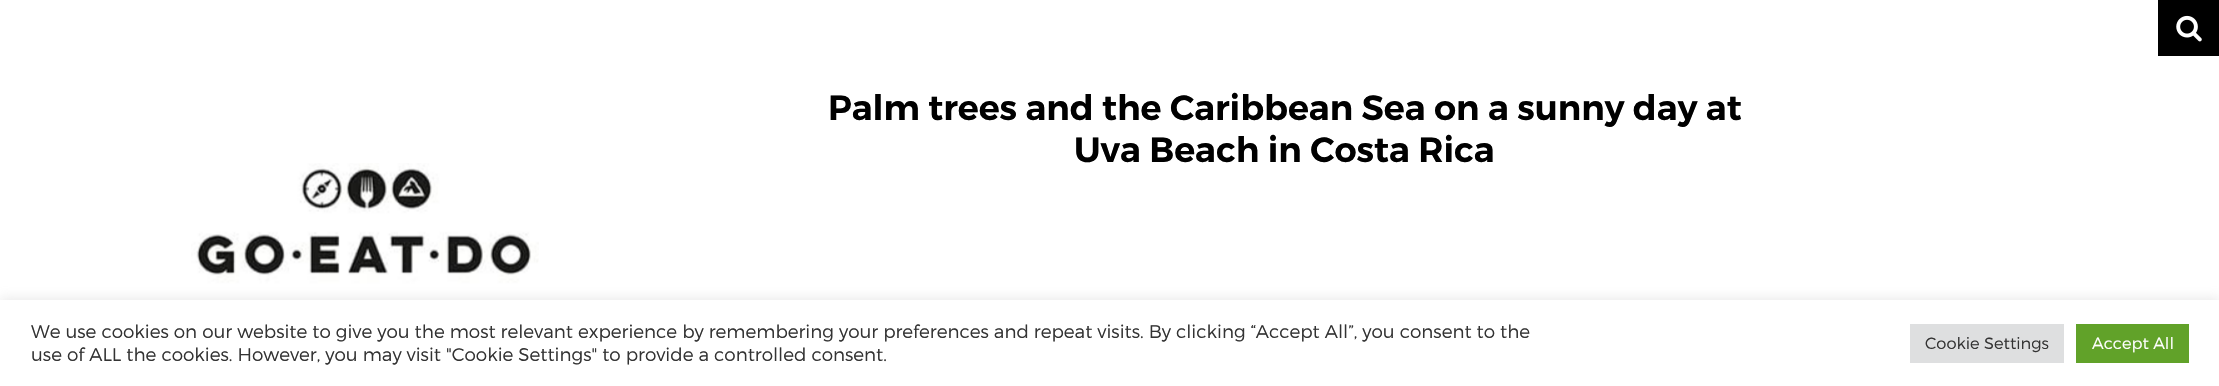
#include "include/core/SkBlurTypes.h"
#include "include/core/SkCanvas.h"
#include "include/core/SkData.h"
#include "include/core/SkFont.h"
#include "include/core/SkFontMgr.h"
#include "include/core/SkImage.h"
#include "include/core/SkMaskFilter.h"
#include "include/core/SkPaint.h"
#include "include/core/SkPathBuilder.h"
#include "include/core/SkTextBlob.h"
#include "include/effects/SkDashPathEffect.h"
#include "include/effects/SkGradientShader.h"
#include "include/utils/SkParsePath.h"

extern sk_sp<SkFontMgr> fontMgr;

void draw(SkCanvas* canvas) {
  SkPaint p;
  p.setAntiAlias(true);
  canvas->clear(SK_ColorWHITE);
  p.setColor(SK_ColorBLACK);
  canvas->drawRect(SkRect::MakeLTRB(2158, 0, 2219, 56), p);
  canvas->drawImageRect(SkImages::DeferredFromEncodedData(SkData::MakeFromFileName("images/1.png")), SkRect::MakeLTRB(2176, 15, 2202, 42), SkSamplingOptions());
  canvas->drawImageRect(SkImages::DeferredFromEncodedData(SkData::MakeFromFileName("images/2.png")), SkRect::MakeLTRB(191, 163, 539, 300), SkSamplingOptions());
  p.setColor(SkColorSetARGB(77, 172, 171, 171));
  p.setMaskFilter(SkMaskFilter::MakeBlur(kNormal_SkBlurStyle, 6));
  canvas->drawRect(SkRect::MakeLTRB(0, 299, 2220, 385), p);
  p.setMaskFilter(nullptr);
  p.setColor(SK_ColorWHITE);
  canvas->drawRect(SkRect::MakeLTRB(0, 300, 2219, 386), p);
  p.setColor(SkColorSetRGB(222, 223, 224));
  canvas->drawRect(SkRect::MakeLTRB(1910, 324, 2064, 363), p);
  p.setColor(SkColorSetRGB(97, 162, 41));
  canvas->drawRect(SkRect::MakeLTRB(2076, 324, 2189, 363), p);
  SkFont font1(fontMgr->matchFamilyStyle("Montserrat", SkFontStyle(600, SkFontStyle::kNormal_Width, SkFontStyle::kUpright_Slant)), 35);
  font1.setSubpixel(true);
  p.setColor(SK_ColorBLACK);
  canvas->drawString("Palm trees and the Caribbean Sea on a sunny day at", 828, 120, font1, p);
  canvas->drawString("Uva Beach in Costa Rica", 1074, 162, font1, p);
  SkFont font2(fontMgr->matchFamilyStyle("Montserrat", SkFontStyle(300, SkFontStyle::kNormal_Width, SkFontStyle::kUpright_Slant)), 18.33f);
  font2.setSubpixel(true);
  p.setColor(SkColorSetRGB(51, 51, 51));
  canvas->drawString("We use cookies on our website to give you the most relevant experience by remembering your preferences and repeat visits. By clicking “Accept All”, you consent to the", 31, 338, font2, p);
  canvas->drawString("use of ALL the cookies. However, you may visit \"Cookie Settings\" to provide a controlled consent.", 31, 361, font2, p);
  SkFont font3(fontMgr->matchFamilyStyle("Montserrat", SkFontStyle(300, SkFontStyle::kNormal_Width, SkFontStyle::kUpright_Slant)), 16.25f);
  font3.setSubpixel(true);
  canvas->drawString("Cookie Settings", 1925, 349, font3, p);
  p.setColor(SK_ColorWHITE);
  canvas->drawString("Accept All", 2092, 349, font3, p);
}
